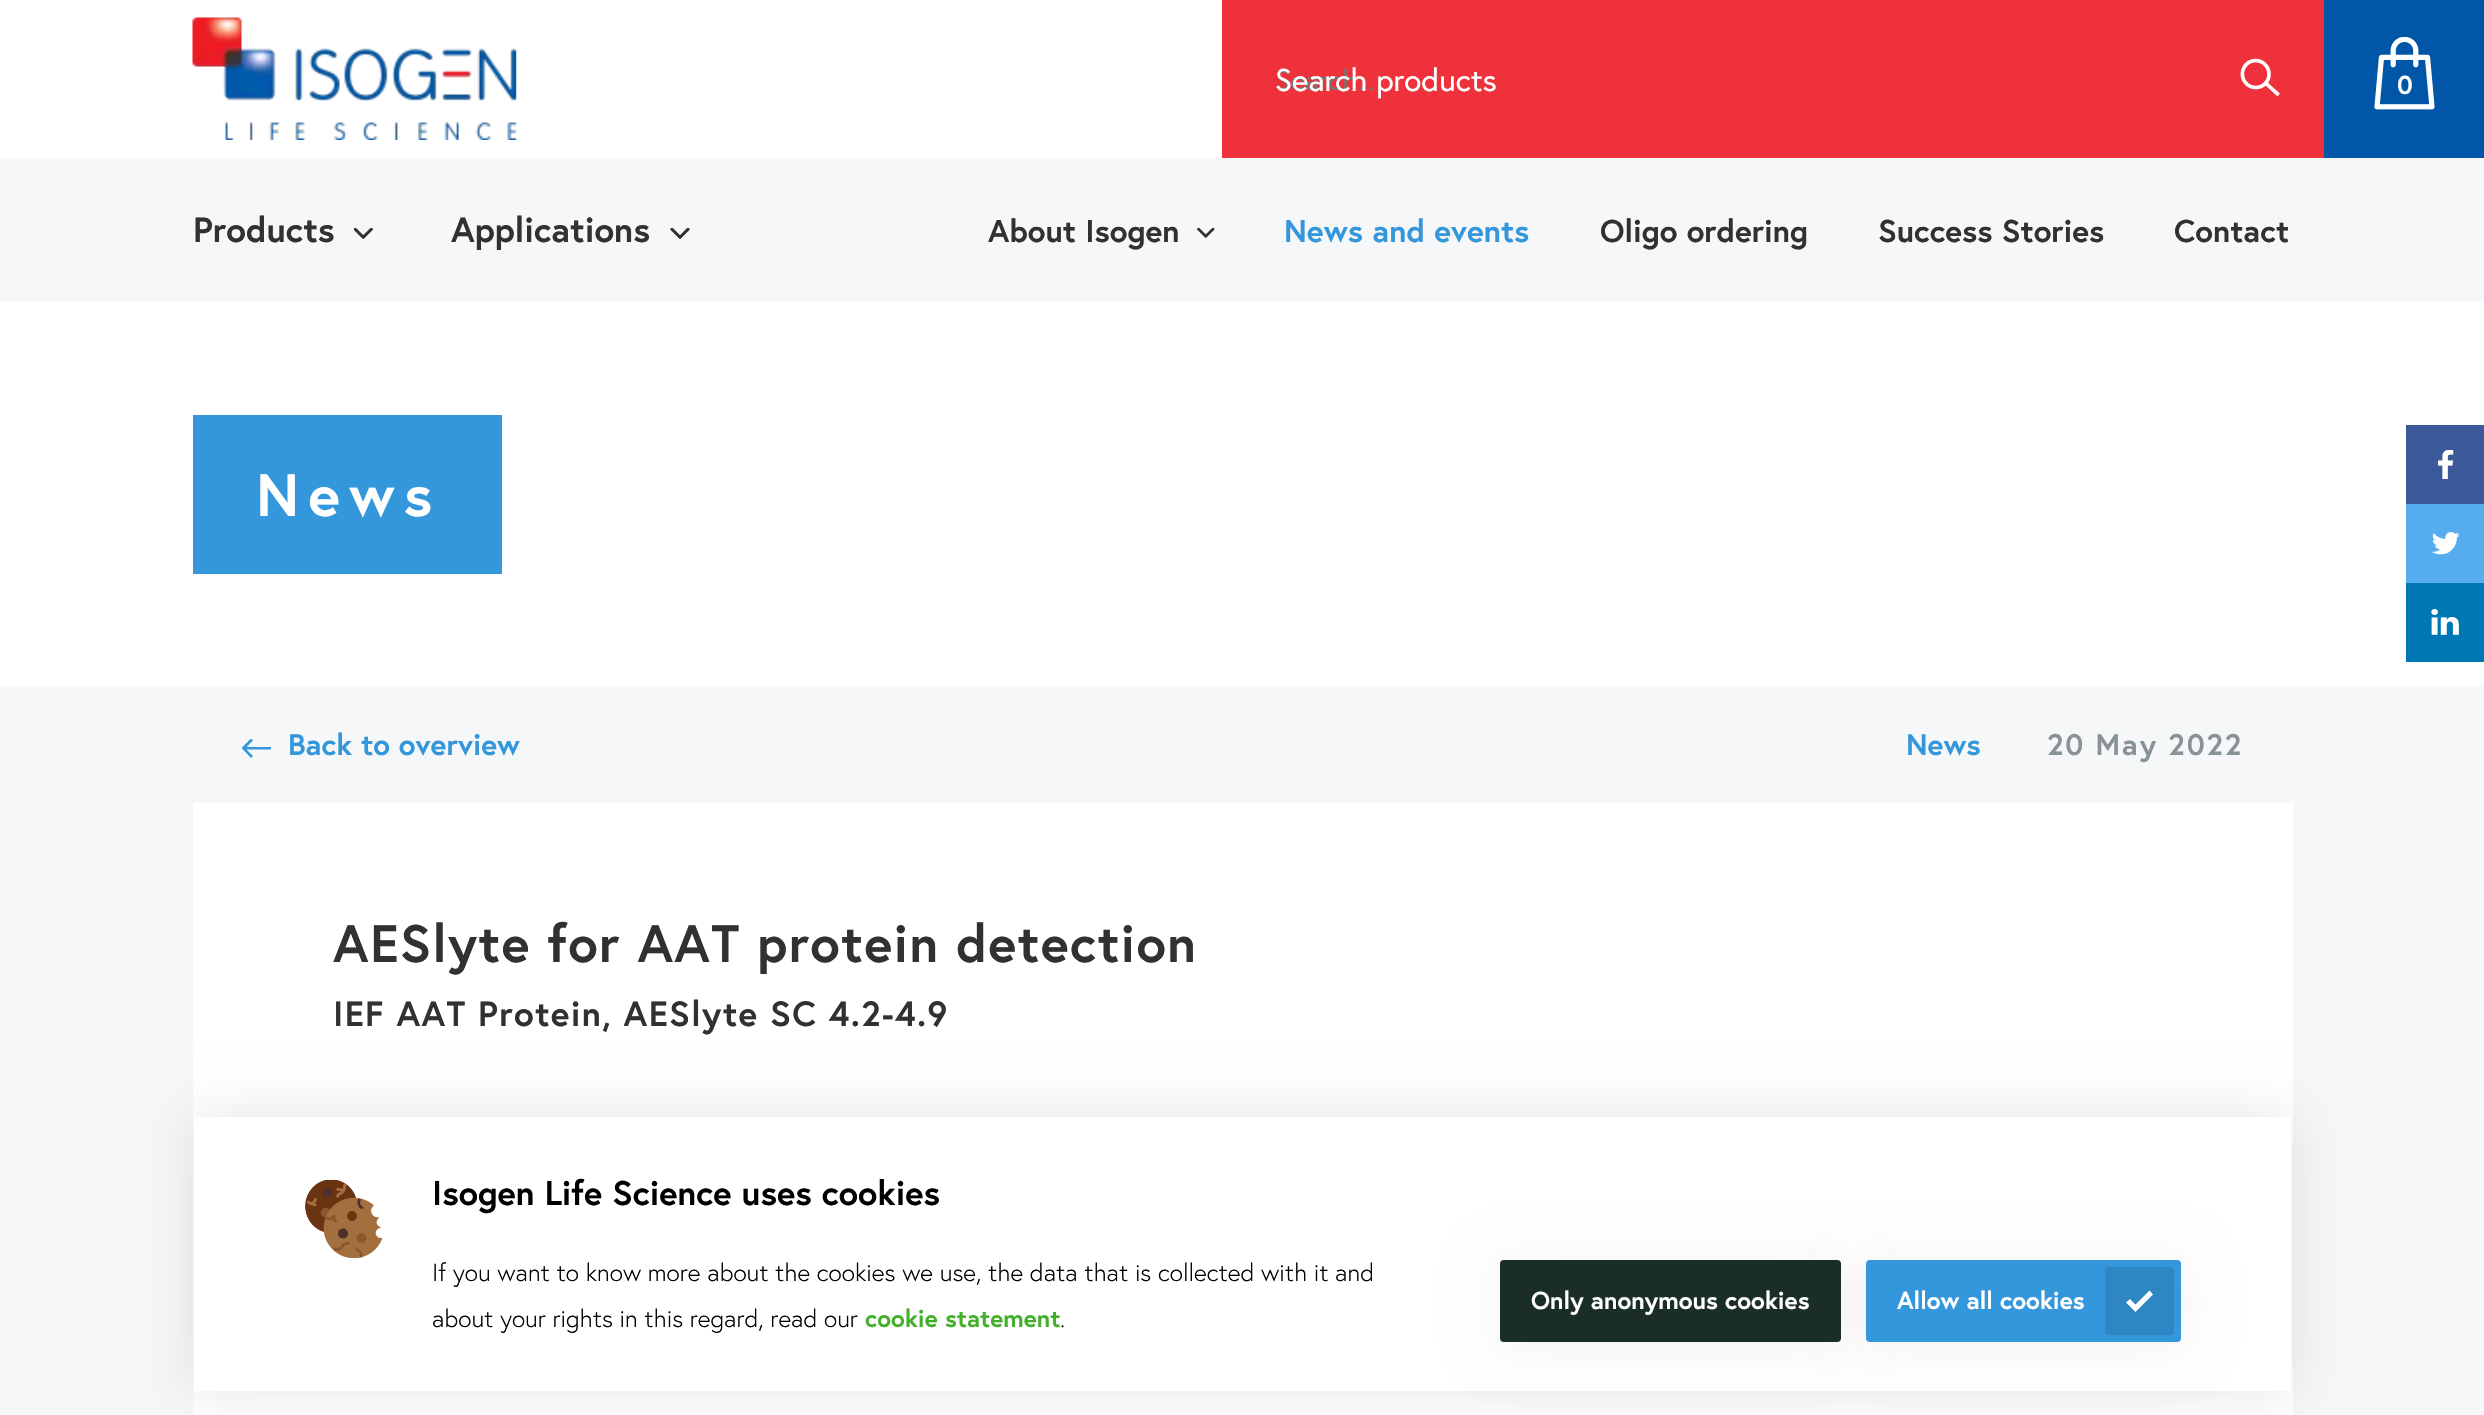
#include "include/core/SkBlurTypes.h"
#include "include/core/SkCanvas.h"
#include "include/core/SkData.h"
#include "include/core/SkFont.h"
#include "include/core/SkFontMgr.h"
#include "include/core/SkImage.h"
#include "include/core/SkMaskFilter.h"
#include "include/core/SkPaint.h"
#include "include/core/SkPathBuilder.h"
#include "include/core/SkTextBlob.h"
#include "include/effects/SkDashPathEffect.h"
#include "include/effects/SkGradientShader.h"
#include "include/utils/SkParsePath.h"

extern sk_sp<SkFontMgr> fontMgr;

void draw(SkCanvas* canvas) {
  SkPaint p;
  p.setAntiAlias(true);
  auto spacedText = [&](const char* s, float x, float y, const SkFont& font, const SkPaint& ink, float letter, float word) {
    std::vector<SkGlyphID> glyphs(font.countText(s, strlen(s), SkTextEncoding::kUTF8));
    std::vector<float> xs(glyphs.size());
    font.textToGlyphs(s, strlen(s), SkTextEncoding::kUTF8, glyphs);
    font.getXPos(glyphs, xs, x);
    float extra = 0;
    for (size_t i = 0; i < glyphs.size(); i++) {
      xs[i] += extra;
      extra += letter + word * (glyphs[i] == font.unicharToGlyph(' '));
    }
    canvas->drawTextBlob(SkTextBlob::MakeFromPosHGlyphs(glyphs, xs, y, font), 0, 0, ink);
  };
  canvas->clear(SK_ColorWHITE);
  p.setColor(SkColorSetRGB(245, 247, 248));
  canvas->drawRect(SkRect::MakeLTRB(0, 158, 2484, 301), p);
  canvas->drawImageRect(SkImages::DeferredFromEncodedData(SkData::MakeFromFileName("images/1.png")), SkRect::MakeLTRB(192, 17, 517, 140), SkSamplingOptions());
  p.setColor(SkColorSetRGB(238, 49, 58));
  canvas->drawRect(SkRect::MakeLTRB(1222, 0, 2324, 158), p);
  canvas->drawImageRect(SkImages::DeferredFromEncodedData(SkData::MakeFromFileName("images/2.png")), SkRect::MakeLTRB(2240, 58, 2280, 97), SkSamplingOptions());
  p.setColor(SkColorSetRGB(1, 86, 167));
  canvas->drawRect(SkRect::MakeLTRB(2324, 0, 2484, 158), p);
  canvas->drawImageRect(SkImages::DeferredFromEncodedData(SkData::MakeFromFileName("images/3.png")), SkRect::MakeLTRB(2374, 37, 2435, 110), SkSamplingOptions());
  canvas->drawImageRect(SkImages::DeferredFromEncodedData(SkData::MakeFromFileName("images/4.png")), SkRect::MakeLTRB(354, 228, 373, 239), SkSamplingOptions());
  canvas->drawImageRect(SkImages::DeferredFromEncodedData(SkData::MakeFromFileName("images/5.png")), SkRect::MakeLTRB(670, 228, 690, 239), SkSamplingOptions());
  canvas->drawImageRect(SkImages::DeferredFromEncodedData(SkData::MakeFromFileName("images/6.png")), SkRect::MakeLTRB(1197, 228, 1215, 238), SkSamplingOptions());
  p.setColor(SkColorSetRGB(52, 151, 219));
  canvas->drawRect(SkRect::MakeLTRB(193, 415, 502, 574), p);
  p.setColor(SkColorSetRGB(59, 89, 153));
  canvas->drawRect(SkRect::MakeLTRB(2406, 425, 2484, 504), p);
  canvas->drawImageRect(SkImages::DeferredFromEncodedData(SkData::MakeFromFileName("images/7.png")), SkRect::MakeLTRB(2438, 450, 2454, 479), SkSamplingOptions());
  p.setColor(SkColorSetRGB(85, 172, 238));
  canvas->drawRect(SkRect::MakeLTRB(2406, 504, 2484, 583), p);
  canvas->drawImageRect(SkImages::DeferredFromEncodedData(SkData::MakeFromFileName("images/8.png")), SkRect::MakeLTRB(2431, 532, 2460, 555), SkSamplingOptions());
  p.setColor(SkColorSetRGB(0, 119, 181));
  canvas->drawRect(SkRect::MakeLTRB(2406, 583, 2484, 662), p);
  canvas->drawImageRect(SkImages::DeferredFromEncodedData(SkData::MakeFromFileName("images/9.png")), SkRect::MakeLTRB(2431, 609, 2459, 635), SkSamplingOptions());
  p.setColor(SkColorSetRGB(245, 247, 248));
  canvas->drawRect(SkRect::MakeLTRB(0, 686, 2484, 1415), p);
  canvas->save();
  canvas->clipRect(SkRect::MakeLTRB(242, 739, 271, 758));
  p.setColor(SkColorSetRGB(52, 151, 219));
  canvas->drawPath(SkPathBuilder().moveTo(271, 749.5f).lineTo(271, 747).lineTo(246.5f, 747).lineTo(253, 740.5f).lineTo(251, 738.5f).lineTo(241.5f, 748).lineTo(251, 758).lineTo(253, 756).lineTo(246.5f, 749.5f).close().detach(), p);
  canvas->restore();
  p.setColor(SK_ColorWHITE);
  canvas->drawRect(SkRect::MakeLTRB(193, 803, 2293, 1415), p);
  p.setColor(SkColorSetARGB(26, 0, 0, 0));
  p.setMaskFilter(SkMaskFilter::MakeBlur(kNormal_SkBlurStyle, 26));
  canvas->drawRect(SkRect::MakeLTRB(194, 1117, 2291, 1391), p);
  p.setMaskFilter(nullptr);
  p.setColor(SK_ColorWHITE);
  canvas->drawRect(SkRect::MakeLTRB(194, 1117, 2291, 1391), p);
  canvas->drawImageRect(SkImages::DeferredFromEncodedData(SkData::MakeFromFileName("images/10.png")), SkRect::MakeLTRB(305, 1180, 383, 1258), SkSamplingOptions());
  p.setColor(SkColorSetARGB(13, 0, 0, 0));
  p.setMaskFilter(SkMaskFilter::MakeBlur(kNormal_SkBlurStyle, 26));
  canvas->drawRoundRect(SkRect::MakeLTRB(1500, 1264, 1841, 1346), 4, 4, p);
  p.setMaskFilter(nullptr);
  p.setColor(SkColorSetRGB(26, 45, 40));
  canvas->drawRoundRect(SkRect::MakeLTRB(1500, 1260, 1841, 1342), 4, 4, p);
  p.setColor(SkColorSetARGB(13, 0, 0, 0));
  p.setMaskFilter(SkMaskFilter::MakeBlur(kNormal_SkBlurStyle, 26));
  canvas->drawRoundRect(SkRect::MakeLTRB(1866, 1264, 2181, 1346), 4, 4, p);
  p.setMaskFilter(nullptr);
  p.setColor(SkColorSetRGB(52, 151, 219));
  canvas->drawRoundRect(SkRect::MakeLTRB(1866, 1260, 2181, 1342), 4, 4, p);
  p.setColor(SkColorSetRGB(46, 134, 195));
  canvas->drawRoundRect(SkRect::MakeLTRB(2105, 1267, 2174, 1335), 4, 4, p);
  p.setColor(SK_ColorWHITE);
  canvas->drawPath(SkPathBuilder().moveTo(2149.5f, 1290.5f).lineTo(2135.5f, 1304.5f).lineTo(2130, 1299).lineTo(2126, 1302.5f).lineTo(2135.5f, 1312).lineTo(2153, 1294.5f).close().detach(), p);
  SkFont font1(fontMgr->matchFamilyStyle("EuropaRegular", SkFontStyle::Normal()), 28);
  font1.setSubpixel(true);
  p.setColor(SkColorSetRGB(117, 117, 117));
  canvas->drawString("Search…", 1275, 90, font1, p);
  SkFont font2(fontMgr->matchFamilyStyle("EuropaRegular", SkFontStyle::Normal()), 31.5f);
  font2.setSubpixel(true);
  p.setColor(SK_ColorWHITE);
  canvas->drawString("Search products", 1275, 91, font2, p);
  SkFont font3(fontMgr->matchFamilyStyle("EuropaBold", SkFontStyle::Bold()), 26);
  font3.setSubpixel(true);
  canvas->drawString("0", 2397, 94, font3, p);
  SkFont font4(fontMgr->matchFamilyStyle("EuropaBold", SkFontStyle::Bold()), 35);
  font4.setSubpixel(true);
  p.setColor(SkColorSetRGB(49, 49, 49));
  canvas->drawString("Products", 193, 242, font4, p);
  canvas->drawString("Applications", 451, 242, font4, p);
  SkFont font5(fontMgr->matchFamilyStyle("EuropaBold", SkFontStyle::Bold()), 31.5f);
  font5.setSubpixel(true);
  canvas->drawString("About Isogen", 988, 242, font5, p);
  p.setColor(SkColorSetRGB(52, 151, 219));
  canvas->drawString("News and events", 1284, 242, font5, p);
  p.setColor(SkColorSetRGB(49, 49, 49));
  canvas->drawString("Oligo ordering", 1600, 242, font5, p);
  canvas->drawString("Success Stories", 1878, 242, font5, p);
  canvas->drawString("Contact", 2174, 242, font5, p);
  SkFont font6(fontMgr->matchFamilyStyle("EuropaBold", SkFontStyle::Bold()), 59.5f);
  font6.setSubpixel(true);
  p.setColor(SK_ColorWHITE);
  spacedText("News", 256, 516, font6, p, 9, 0);
  SkFont font7(fontMgr->matchFamilyStyle("EuropaBold", SkFontStyle::Bold()), 29.75f);
  font7.setSubpixel(true);
  p.setColor(SkColorSetRGB(52, 151, 219));
  canvas->drawString("Back to overview", 288, 755, font7, p);
  canvas->drawString("News", 1906, 755, font7, p);
  p.setColor(SkColorSetRGB(135, 147, 148));
  spacedText("20 May 2022", 2047, 755, font7, p, 1.75f, 0);
  SkFont font8(fontMgr->matchFamilyStyle("EuropaBold", SkFontStyle::Bold()), 52.5f);
  font8.setSubpixel(true);
  p.setColor(SkColorSetRGB(49, 49, 49));
  spacedText("AESlyte for AAT protein detection", 333, 962, font8, p, 1.3f, 0);
  spacedText("IEF AAT Protein, AESlyte SC 4.2-4.9", 333, 1026, font4, p, 1.3f, 0);
  SkFont font9(fontMgr->matchFamilyStyle("EuropaBold", SkFontStyle::Bold()), 34.25f);
  font9.setSubpixel(true);
  p.setColor(SK_ColorBLACK);
  canvas->drawString("Isogen Life Science uses cookies", 432, 1205, font9, p);
  SkFont font10(fontMgr->matchFamilyStyle("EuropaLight", SkFontStyle(300, SkFontStyle::kNormal_Width, SkFontStyle::kUpright_Slant)), 24.5f);
  font10.setSubpixel(true);
  canvas->drawString("If you want to know more about the cookies we use, the data that is collected with it and", 432, 1281, font10, p);
  canvas->drawString("about your rights in this regard, read our", 432, 1327, font10, p);
  SkFont font11(fontMgr->matchFamilyStyle("EuropaBold", SkFontStyle::Bold()), 24.5f);
  font11.setSubpixel(true);
  p.setColor(SkColorSetRGB(67, 176, 42));
  canvas->drawString("cookie statement", 865, 1327, font11, p);
  p.setColor(SK_ColorBLACK);
  canvas->drawString(".", 1060, 1327, font10, p);
  p.setColor(SK_ColorWHITE);
  canvas->drawString("Only anonymous cookies", 1531, 1309, font11, p);
  canvas->drawString("Allow all cookies", 1897, 1309, font11, p);
}
